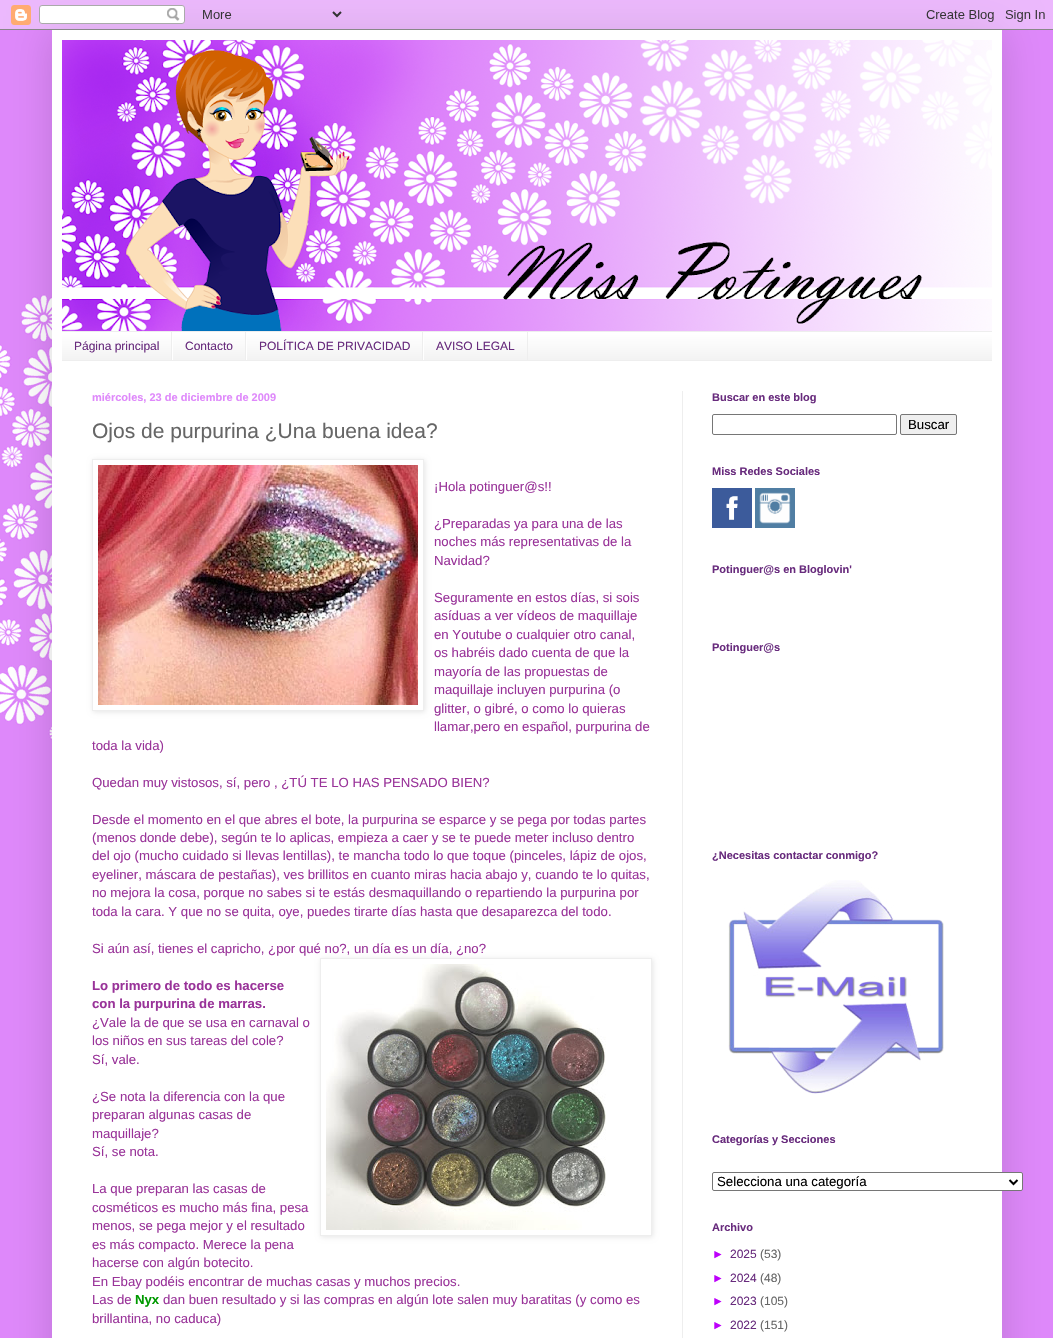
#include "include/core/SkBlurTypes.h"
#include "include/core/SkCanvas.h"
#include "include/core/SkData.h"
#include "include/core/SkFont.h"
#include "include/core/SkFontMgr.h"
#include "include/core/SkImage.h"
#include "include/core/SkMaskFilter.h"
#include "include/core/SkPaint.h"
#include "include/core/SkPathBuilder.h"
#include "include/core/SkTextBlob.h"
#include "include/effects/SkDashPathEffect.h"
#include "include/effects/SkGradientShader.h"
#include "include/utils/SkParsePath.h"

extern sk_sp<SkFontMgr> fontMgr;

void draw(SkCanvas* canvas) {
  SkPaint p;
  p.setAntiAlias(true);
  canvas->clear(SK_ColorWHITE);
  canvas->drawImageRect(SkImages::DeferredFromEncodedData(SkData::MakeFromFileName("images/1.png")), SkRect::MakeLTRB(0, 0, 1053, 1338), SkSamplingOptions());
  p.setColor(SkColorSetARGB(38, 0, 0, 0));
  p.setMaskFilter(SkMaskFilter::MakeBlur(kNormal_SkBlurStyle, 20));
  canvas->drawRect(SkRect::MakeLTRB(52, 30, 1002, 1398), p);
  p.setMaskFilter(nullptr);
  canvas->drawImageRect(SkImages::DeferredFromEncodedData(SkData::MakeFromFileName("images/2.png")), SkRect::MakeLTRB(0, 0, 1053, 30), SkSamplingOptions());
  p.setColor(SK_ColorWHITE);
  canvas->drawRect(SkRect::MakeLTRB(52, 30, 1002, 1338), p);
  canvas->drawImageRect(SkImages::DeferredFromEncodedData(SkData::MakeFromFileName("images/3.png")), SkRect::MakeLTRB(62, 40, 992, 331), SkSamplingOptions());
  p.setColor(SkColorSetRGB(238, 238, 238));
  canvas->drawRect(SkRect::MakeLTRB(62, 333, 992, 361), p);
  canvas->drawImageRect(SkImages::DeferredFromEncodedData(SkData::MakeFromFileName("images/4.png")), SkRect::MakeLTRB(62, 332, 992, 360), SkSamplingOptions());
  canvas->drawRect(SkRect::MakeLTRB(62, 331, 992, 332), p);
  canvas->drawRect(SkRect::MakeLTRB(171, 332, 172, 360), p);
  canvas->drawRect(SkRect::MakeLTRB(245, 332, 246, 360), p);
  p.setColor(SK_ColorWHITE);
  canvas->drawRect(SkRect::MakeLTRB(172, 332, 173, 360), p);
  p.setColor(SkColorSetRGB(238, 238, 238));
  canvas->drawRect(SkRect::MakeLTRB(422, 332, 423, 360), p);
  p.setColor(SK_ColorWHITE);
  canvas->drawRect(SkRect::MakeLTRB(246, 332, 247, 360), p);
  p.setColor(SkColorSetRGB(238, 238, 238));
  canvas->drawRect(SkRect::MakeLTRB(527, 332, 528, 360), p);
  p.setColor(SK_ColorWHITE);
  canvas->drawRect(SkRect::MakeLTRB(423, 332, 424, 360), p);
  p.setColor(SkColorSetRGB(238, 238, 238));
  canvas->drawRect(SkRect::MakeLTRB(682, 391, 683, 1338), p);
  canvas->save();
  canvas->clipPath(SkPathBuilder(SkPathFillType::kEvenOdd).moveTo(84, 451).lineTo(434, 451).lineTo(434, 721).lineTo(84, 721).close().moveTo(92, 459).lineTo(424, 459).lineTo(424, 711).lineTo(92, 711).close().detach(), true);
  p.setColor(SkColorSetARGB(26, 0, 0, 0));
  p.setMaskFilter(SkMaskFilter::MakeBlur(kNormal_SkBlurStyle, 2.5f));
  canvas->drawRect(SkRect::MakeLTRB(93, 460, 425, 712), p);
  p.setMaskFilter(nullptr);
  canvas->restore();
  p.setStyle(SkPaint::kStroke_Style);
  p.setStrokeWidth(1);
  p.setColor(SkColorSetRGB(238, 238, 238));
  canvas->drawRect(SkRect::MakeLTRB(92.5f, 459.5f, 423.5f, 710.5f), p);
  canvas->drawImageRect(SkImages::DeferredFromEncodedData(SkData::MakeFromFileName("images/5.png")), SkRect::MakeLTRB(98, 465, 418, 705), SkSamplingOptions());
  canvas->save();
  canvas->clipPath(SkPathBuilder(SkPathFillType::kEvenOdd).moveTo(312, 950).lineTo(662, 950).lineTo(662, 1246).lineTo(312, 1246).close().moveTo(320, 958).lineTo(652, 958).lineTo(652, 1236).lineTo(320, 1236).close().detach(), true);
  p.setStyle(SkPaint::kFill_Style);
  p.setColor(SkColorSetARGB(26, 0, 0, 0));
  p.setMaskFilter(SkMaskFilter::MakeBlur(kNormal_SkBlurStyle, 2.5f));
  canvas->drawRect(SkRect::MakeLTRB(321, 959, 653, 1237), p);
  p.setMaskFilter(nullptr);
  canvas->restore();
  p.setStyle(SkPaint::kStroke_Style);
  p.setColor(SkColorSetRGB(238, 238, 238));
  canvas->drawRect(SkRect::MakeLTRB(320.5f, 958.5f, 651.5f, 1235.5f), p);
  canvas->drawImageRect(SkImages::DeferredFromEncodedData(SkData::MakeFromFileName("images/6.png")), SkRect::MakeLTRB(326, 964, 606, 1230), SkSamplingOptions());
  p.setColor(SkColorSetRGB(118, 118, 118));
  canvas->drawRoundRect(SkRect::MakeLTRB(712.5f, 414.5f, 896.5f, 434.5f), 1.5f, 1.5f, p);
  p.setStyle(SkPaint::kFill_Style);
  p.setColor(SkColorSetRGB(239, 239, 239));
  canvas->drawRoundRect(SkRect::MakeLTRB(900.5f, 414.5f, 956.5f, 434.5f), 1.5f, 1.5f, p);
  p.setStyle(SkPaint::kStroke_Style);
  p.setColor(SkColorSetRGB(118, 118, 118));
  canvas->drawRoundRect(SkRect::MakeLTRB(900.5f, 414.5f, 956.5f, 434.5f), 1.5f, 1.5f, p);
  canvas->drawImageRect(SkImages::DeferredFromEncodedData(SkData::MakeFromFileName("images/7.png")), SkRect::MakeLTRB(712, 488, 752, 528), SkSamplingOptions());
  canvas->drawImageRect(SkImages::DeferredFromEncodedData(SkData::MakeFromFileName("images/8.png")), SkRect::MakeLTRB(755, 488, 795, 528), SkSamplingOptions());
  canvas->drawImageRect(SkImages::DeferredFromEncodedData(SkData::MakeFromFileName("images/9.png")), SkRect::MakeLTRB(728, 880, 944, 1094), SkSamplingOptions());
  p.setStyle(SkPaint::kFill_Style);
  p.setColor(SK_ColorWHITE);
  canvas->drawRoundRect(SkRect::MakeLTRB(712.5f, 1172.5f, 1022.5f, 1190.5f), 1.5f, 1.5f, p);
  p.setStyle(SkPaint::kStroke_Style);
  p.setColor(SkColorSetRGB(118, 118, 118));
  canvas->drawRoundRect(SkRect::MakeLTRB(712.5f, 1172.5f, 1022.5f, 1190.5f), 1.5f, 1.5f, p);
  p.setStrokeWidth(2);
  p.setColor(SK_ColorBLACK);
  canvas->drawPath(SkPathBuilder().moveTo(1009.5f, 1180).lineTo(1013.5f, 1184).lineTo(1017.5f, 1180).detach(), p);
  SkFont font1(fontMgr->matchFamilyStyle("Liberation Sans", SkFontStyle::Normal()), 12);
  font1.setSubpixel(true);
  p.setStyle(SkPaint::kFill_Style);
  p.setColor(SkColorSetRGB(104, 43, 125));
  canvas->drawString("Página principal", 74, 350, font1, p);
  canvas->drawString("Contacto", 185, 350, font1, p);
  canvas->drawString("POLÍTICA DE PRIVACIDAD", 259, 350, font1, p);
  canvas->drawString("AVISO LEGAL", 436, 350, font1, p);
  SkFont font2(fontMgr->matchFamilyStyle("Liberation Sans", SkFontStyle::Bold()), 11);
  font2.setSubpixel(true);
  p.setColor(SkColorSetRGB(223, 137, 251));
  canvas->drawString("miércoles, 23 de diciembre de 2009", 92, 401, font2, p);
  SkFont font3(fontMgr->matchFamilyStyle("Liberation Sans", SkFontStyle::Normal()), 21);
  font3.setSubpixel(true);
  p.setColor(SkColorSetRGB(102, 102, 102));
  canvas->drawString("Ojos de purpurina ¿Una buena idea?", 92, 438, font3, p);
  SkFont font4(fontMgr->matchFamilyStyle("Liberation Sans", SkFontStyle::Normal()), 13.2f);
  font4.setSubpixel(true);
  p.setColor(SkColorSetRGB(153, 51, 153));
  canvas->drawString("¡Hola potinguer@s!!", 434, 491, font4, p);
  canvas->drawString("¿Preparadas ya para una de las", 434, 528, font4, p);
  canvas->drawString("noches más representativas de la", 434, 546, font4, p);
  canvas->drawString("Navidad?", 434, 565, font4, p);
  canvas->drawString("Seguramente en estos días, si sois", 434, 602, font4, p);
  canvas->drawString("asíduas a ver vídeos de maquillaje", 434, 620, font4, p);
  canvas->drawString("en Youtube o cualquier otro canal,", 434, 639, font4, p);
  canvas->drawString("os habréis dado cuenta de que la", 434, 657, font4, p);
  canvas->drawString("mayoría de las propuestas de", 434, 676, font4, p);
  canvas->drawString("maquillaje incluyen purpurina (o", 434, 694, font4, p);
  canvas->drawString("glitter, o gibré, o como lo quieras", 434, 713, font4, p);
  canvas->drawString("llamar,pero en español, purpurina de", 434, 731, font4, p);
  canvas->drawString("toda la vida)", 92, 750, font4, p);
  canvas->drawString("Quedan muy vistosos, sí, pero , ¿TÚ TE LO HAS PENSADO BIEN?", 92, 787, font4, p);
  canvas->drawString("Desde el momento en el que abres el bote, la purpurina se esparce y se pega por todas partes", 92, 824, font4, p);
  canvas->drawString("(menos donde debe), según te lo aplicas, empieza a caer y se te puede meter incluso dentro", 92, 842, font4, p);
  canvas->drawString("del ojo (mucho cuidado si llevas lentillas), te mancha todo lo que toque (pinceles, lápiz de ojos,", 92, 860, font4, p);
  canvas->drawString("eyeliner, máscara de pestañas), ves brillitos en cuanto miras hacia abajo y, cuando te lo quitas,", 92, 879, font4, p);
  canvas->drawString("no mejora la cosa, porque no sabes si te estás desmaquillando o repartiendo la purpurina por", 92, 897, font4, p);
  canvas->drawString("toda la cara. Y que no se quita, oye, puedes tirarte días hasta que desaparezca del todo.", 92, 916, font4, p);
  canvas->drawString("Si aún así, tienes el capricho, ¿por qué no?, un día es un día, ¿no?", 92, 953, font4, p);
  SkFont font5(fontMgr->matchFamilyStyle("Liberation Sans", SkFontStyle::Bold()), 13.2f);
  font5.setSubpixel(true);
  canvas->drawString("Lo primero de todo es hacerse", 92, 990, font5, p);
  canvas->drawString("con la purpurina de marras.", 92, 1008, font5, p);
  canvas->drawString("¿Vale la de que se usa en carnaval o", 92, 1027, font4, p);
  canvas->drawString("los niños en sus tareas del cole?", 92, 1045, font4, p);
  canvas->drawString("Sí, vale.", 92, 1064, font4, p);
  canvas->drawString("¿Se nota la diferencia con la que", 92, 1101, font4, p);
  canvas->drawString("preparan algunas casas de", 92, 1119, font4, p);
  canvas->drawString("maquillaje?", 92, 1138, font4, p);
  canvas->drawString("Sí, se nota.", 92, 1156, font4, p);
  canvas->drawString("La que preparan las casas de", 92, 1193, font4, p);
  canvas->drawString("cosméticos es mucho más fina, pesa", 92, 1212, font4, p);
  canvas->drawString("menos, se pega mejor y el resultado", 92, 1230, font4, p);
  canvas->drawString("es más compacto. Merece la pena", 92, 1249, font4, p);
  canvas->drawString("hacerse con algún botecito.", 92, 1267, font4, p);
  canvas->drawString("En Ebay podéis encontrar de muchas casas y muchos precios.", 92, 1286, font4, p);
  canvas->drawString("Las de", 92, 1304, font4, p);
  p.setColor(SkColorSetRGB(0, 153, 0));
  canvas->drawString("Nyx", 135, 1304, font5, p);
  p.setColor(SkColorSetRGB(153, 51, 153));
  canvas->drawString("dan buen resultado y si las compras en algún lote salen muy baratitas (y como es", 163, 1304, font4, p);
  canvas->drawString("brillantina, no caduca)", 92, 1323, font4, p);
  p.setColor(SkColorSetRGB(104, 43, 125));
  canvas->drawString("Buscar en este blog", 712, 401, font2, p);
  SkFont font6(fontMgr->matchFamilyStyle("Liberation Sans", SkFontStyle::Normal()), 13.25f);
  font6.setSubpixel(true);
  p.setColor(SK_ColorBLACK);
  canvas->drawString("Buscar", 908, 429, font6, p);
  p.setColor(SkColorSetRGB(104, 43, 125));
  canvas->drawString("Miss Redes Sociales", 712, 475, font2, p);
  canvas->drawString("Potinguer@s en Bloglovin'", 712, 573, font2, p);
  canvas->drawString("Potinguer@s", 712, 651, font2, p);
  canvas->drawString("¿Necesitas contactar conmigo?", 712, 859, font2, p);
  canvas->drawString("Categorías y Secciones", 712, 1143, font2, p);
  p.setColor(SK_ColorBLACK);
  canvas->drawString("Selecciona una categoría", 717, 1186, font6, p);
  p.setColor(SkColorSetRGB(104, 43, 125));
  canvas->drawString("Archivo", 712, 1231, font2, p);
  p.setColor(SkColorSetRGB(189, 0, 251));
  canvas->drawString("►", 712, 1258, font1, p);
  p.setColor(SkColorSetRGB(104, 43, 125));
  canvas->drawString("2025", 730, 1258, font1, p);
  p.setColor(SkColorSetRGB(102, 102, 102));
  canvas->drawString("(53)", 760, 1258, font1, p);
  p.setColor(SkColorSetRGB(189, 0, 251));
  canvas->drawString("►", 712, 1282, font1, p);
  p.setColor(SkColorSetRGB(104, 43, 125));
  canvas->drawString("2024", 730, 1282, font1, p);
  p.setColor(SkColorSetRGB(102, 102, 102));
  canvas->drawString("(48)", 760, 1282, font1, p);
  p.setColor(SkColorSetRGB(189, 0, 251));
  canvas->drawString("►", 712, 1305, font1, p);
  p.setColor(SkColorSetRGB(104, 43, 125));
  canvas->drawString("2023", 730, 1305, font1, p);
  p.setColor(SkColorSetRGB(102, 102, 102));
  canvas->drawString("(105)", 760, 1305, font1, p);
  p.setColor(SkColorSetRGB(189, 0, 251));
  canvas->drawString("►", 712, 1329, font1, p);
  p.setColor(SkColorSetRGB(104, 43, 125));
  canvas->drawString("2022", 730, 1329, font1, p);
  p.setColor(SkColorSetRGB(102, 102, 102));
  canvas->drawString("(151)", 760, 1329, font1, p);
}
